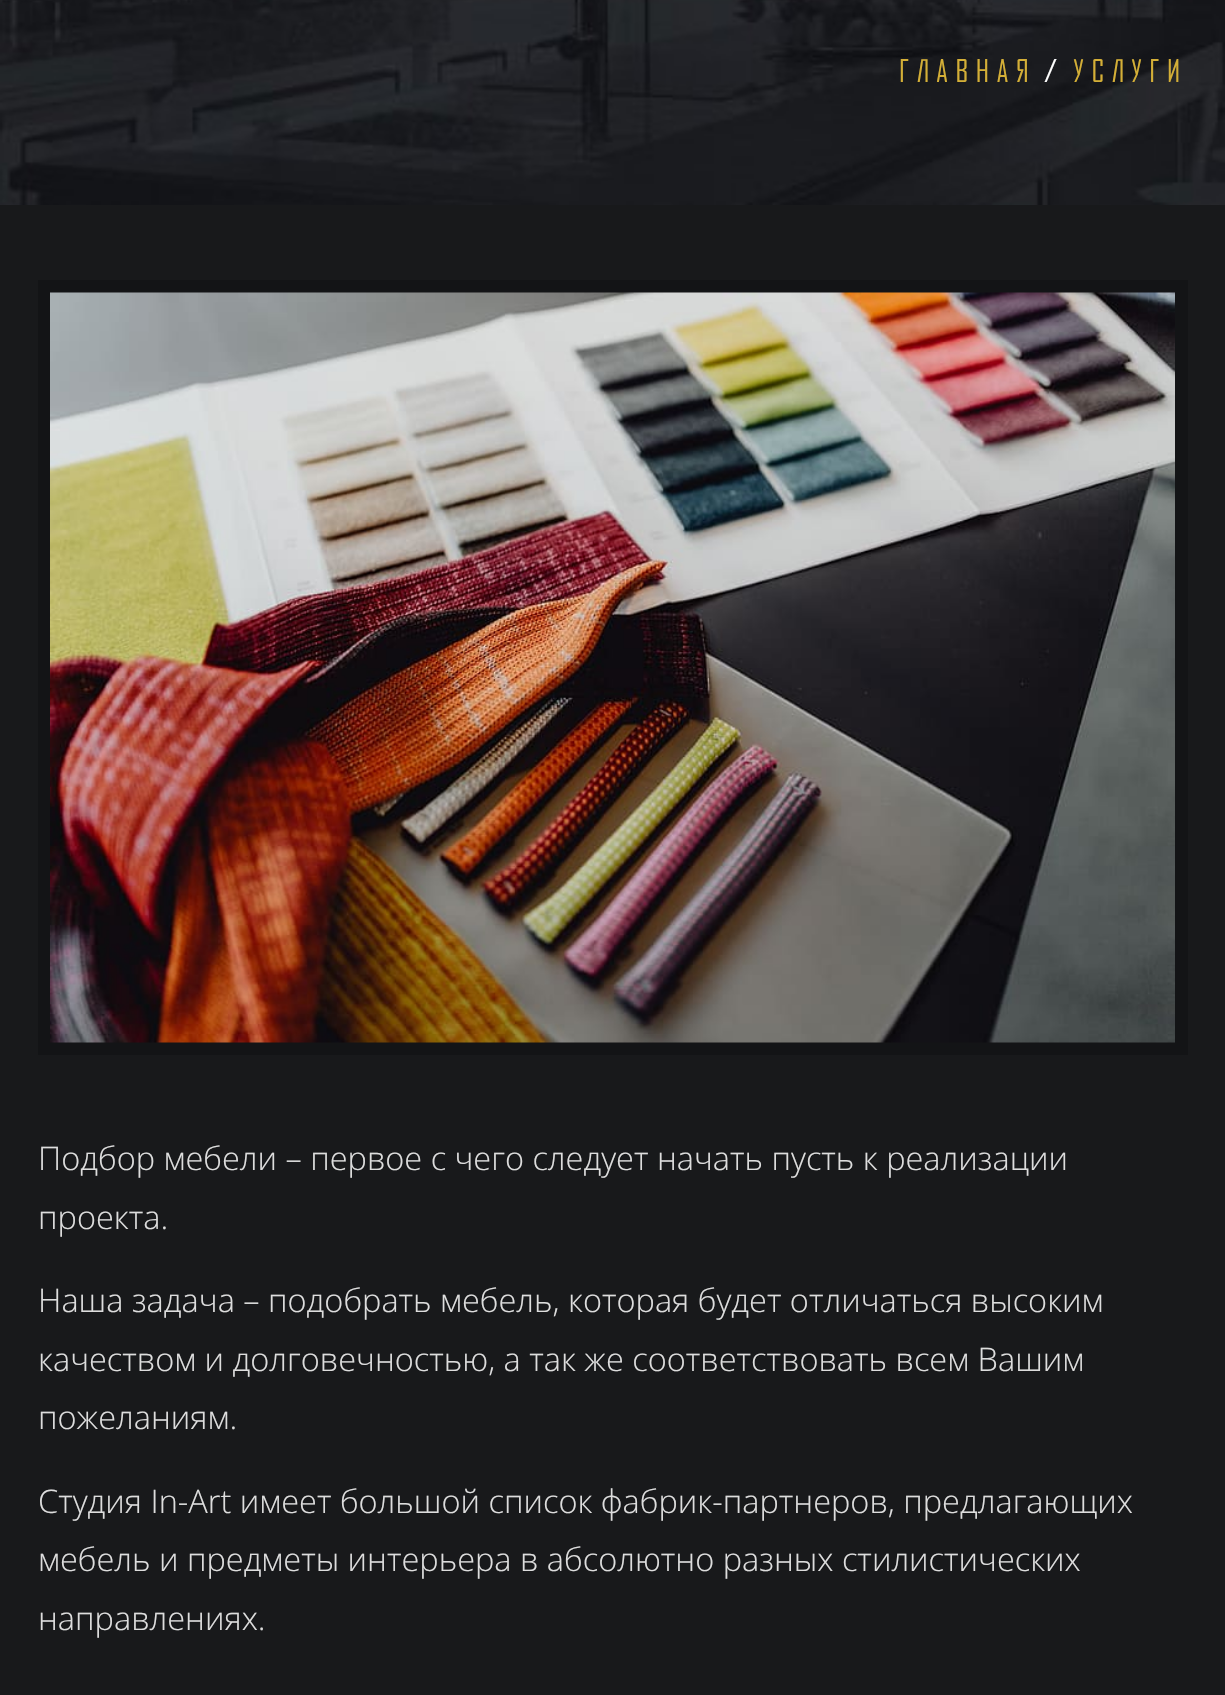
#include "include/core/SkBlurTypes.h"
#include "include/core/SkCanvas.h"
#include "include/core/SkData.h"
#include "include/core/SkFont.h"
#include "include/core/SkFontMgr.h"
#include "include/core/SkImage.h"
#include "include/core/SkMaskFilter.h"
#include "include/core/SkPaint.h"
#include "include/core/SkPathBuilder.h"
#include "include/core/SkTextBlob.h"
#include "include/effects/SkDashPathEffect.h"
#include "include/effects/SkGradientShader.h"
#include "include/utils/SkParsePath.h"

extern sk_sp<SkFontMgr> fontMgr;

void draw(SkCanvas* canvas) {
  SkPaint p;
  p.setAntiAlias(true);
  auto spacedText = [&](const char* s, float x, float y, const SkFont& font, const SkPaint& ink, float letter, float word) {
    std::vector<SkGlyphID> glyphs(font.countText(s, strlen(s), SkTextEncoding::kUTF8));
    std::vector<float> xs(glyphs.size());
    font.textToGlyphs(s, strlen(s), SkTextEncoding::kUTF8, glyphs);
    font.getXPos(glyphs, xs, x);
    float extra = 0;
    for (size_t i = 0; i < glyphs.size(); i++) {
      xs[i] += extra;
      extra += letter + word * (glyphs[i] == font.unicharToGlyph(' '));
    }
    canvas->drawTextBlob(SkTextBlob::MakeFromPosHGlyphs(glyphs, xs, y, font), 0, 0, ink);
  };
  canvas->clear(SkColorSetRGB(24, 25, 27));
  canvas->drawImageRect(SkImages::DeferredFromEncodedData(SkData::MakeFromFileName("images/1.png")), SkRect::MakeLTRB(0, 0, 1225, 205), SkSamplingOptions());
  p.setStyle(SkPaint::kStroke_Style);
  p.setStrokeWidth(13);
  p.setColor(SkColorSetRGB(19, 20, 22));
  canvas->drawRect(SkRect::MakeLTRB(44.5f, 286.5f, 1181.5f, 1048.5f), p);
  canvas->drawImageRect(SkImages::DeferredFromEncodedData(SkData::MakeFromFileName("images/2.png")), SkRect::MakeLTRB(50, 292, 1175, 1043), SkSamplingOptions());
  SkFont font1(fontMgr->matchFamilyStyle("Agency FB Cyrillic", SkFontStyle::Normal()), 30);
  font1.setSubpixel(true);
  p.setStyle(SkPaint::kFill_Style);
  p.setColor(SkColorSetRGB(212, 175, 55));
  spacedText("ГЛАВНАЯ", 899, 82, font1, p, 7.5f, 0);
  p.setColor(SK_ColorWHITE);
  spacedText("/", 1044, 82, font1, p, 7.5f, 0);
  p.setColor(SkColorSetRGB(212, 175, 55));
  spacedText("УСЛУГИ", 1073, 82, font1, p, 7.5f, 0);
  SkFont font2(fontMgr->matchFamilyStyle("Open Sans", SkFontStyle(300, SkFontStyle::kNormal_Width, SkFontStyle::kUpright_Slant)), 32.5f);
  font2.setSubpixel(true);
  p.setColor(SkColorSetRGB(221, 221, 221));
  canvas->drawString("Подбор мебели – первое с чего следует начать пусть к реализации", 38, 1170, font2, p);
  canvas->drawString("проекта.", 38, 1229, font2, p);
  canvas->drawString("Наша задача – подобрать мебель, которая будет отличаться высоким", 38, 1312, font2, p);
  canvas->drawString("качеством и долговечностью, а так же соответствовать всем Вашим", 38, 1371, font2, p);
  canvas->drawString("пожеланиям.", 38, 1429, font2, p);
  canvas->drawString("Студия In-Art имеет большой список фабрик-партнеров, предлагающих", 38, 1513, font2, p);
  canvas->drawString("мебель и предметы интерьера в абсолютно разных стилистических", 38, 1571, font2, p);
  canvas->drawString("направлениях.", 38, 1630, font2, p);
}
